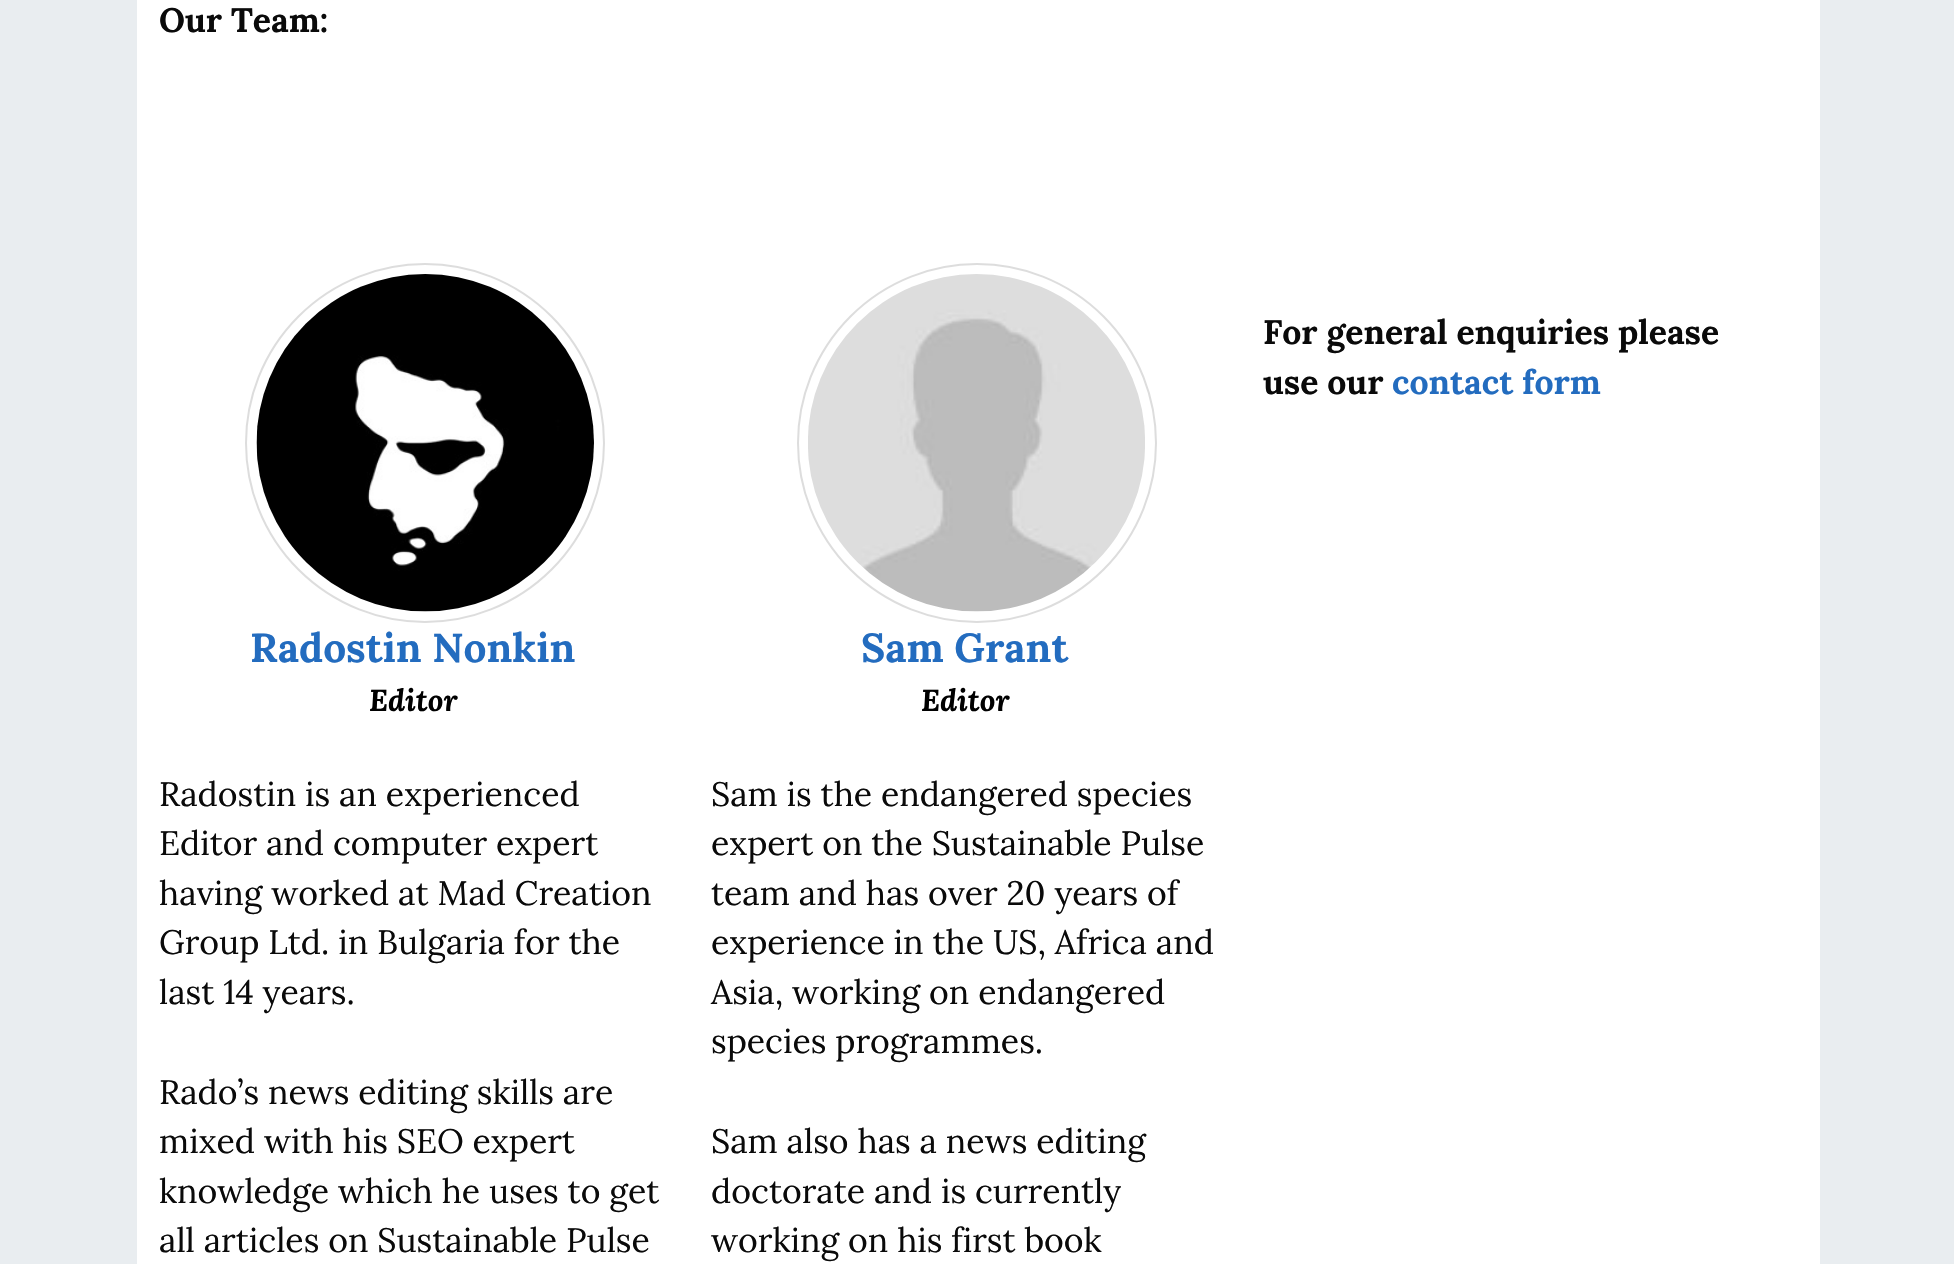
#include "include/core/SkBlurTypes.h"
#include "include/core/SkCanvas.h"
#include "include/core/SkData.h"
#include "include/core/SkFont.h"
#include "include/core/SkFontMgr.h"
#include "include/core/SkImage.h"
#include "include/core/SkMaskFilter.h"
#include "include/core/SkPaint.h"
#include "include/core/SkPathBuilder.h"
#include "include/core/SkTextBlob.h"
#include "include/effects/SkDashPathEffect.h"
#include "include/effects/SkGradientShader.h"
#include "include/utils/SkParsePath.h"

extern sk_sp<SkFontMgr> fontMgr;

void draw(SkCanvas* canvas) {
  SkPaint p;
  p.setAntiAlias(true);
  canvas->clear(SkColorSetRGB(233, 237, 240));
  p.setColor(SK_ColorWHITE);
  canvas->drawRect(SkRect::MakeLTRB(137, 0, 1820, 1264), p);
  p.setStyle(SkPaint::kStroke_Style);
  p.setStrokeWidth(2);
  p.setColor(SkColorSetRGB(221, 221, 221));
  canvas->drawCircle(425, 443, 179, p);
  canvas->drawImageRect(SkImages::DeferredFromEncodedData(SkData::MakeFromFileName("images/1.png")), SkRect::MakeLTRB(256, 274, 594, 612), SkSamplingOptions());
  canvas->drawCircle(977, 443, 179, p);
  canvas->drawImageRect(SkImages::DeferredFromEncodedData(SkData::MakeFromFileName("images/2.png")), SkRect::MakeLTRB(808, 274, 1145, 612), SkSamplingOptions());
  SkFont font1(fontMgr->matchFamilyStyle("Lora", SkFontStyle::Bold()), 33.75f);
  font1.setSubpixel(true);
  p.setStyle(SkPaint::kFill_Style);
  p.setColor(SkColorSetRGB(10, 10, 10));
  canvas->drawString("Our Team:", 159, 32, font1, p);
  canvas->drawString("For general enquiries please", 1263, 344, font1, p);
  canvas->drawString("use our", 1263, 394, font1, p);
  p.setColor(SkColorSetRGB(35, 108, 191));
  canvas->drawString("contact form", 1392, 394, font1, p);
  SkFont font2(fontMgr->matchFamilyStyle("Lora", SkFontStyle::Bold()), 40.5f);
  font2.setSubpixel(true);
  canvas->drawString("Radostin Nonkin", 250, 662, font2, p);
  SkFont font3(fontMgr->matchFamilyStyle("Lora", SkFontStyle::BoldItalic()), 30.5f);
  font3.setSubpixel(true);
  p.setColor(SK_ColorBLACK);
  canvas->drawString("Editor", 369, 711, font3, p);
  SkFont font4(fontMgr->matchFamilyStyle("Lora", SkFontStyle::Normal()), 33.75f);
  font4.setSubpixel(true);
  p.setColor(SkColorSetRGB(10, 10, 10));
  canvas->drawString("Radostin is an experienced", 159, 806, font4, p);
  canvas->drawString("Editor and computer expert", 159, 855, font4, p);
  canvas->drawString("having worked at Mad Creation", 159, 905, font4, p);
  canvas->drawString("Group Ltd. in Bulgaria for the", 159, 954, font4, p);
  canvas->drawString("last 14 years.", 159, 1004, font4, p);
  canvas->drawString("Rado’s news editing skills are", 159, 1104, font4, p);
  canvas->drawString("mixed with his SEO expert", 159, 1153, font4, p);
  canvas->drawString("knowledge which he uses to get", 159, 1203, font4, p);
  canvas->drawString("all articles on Sustainable Pulse", 159, 1252, font4, p);
  p.setColor(SkColorSetRGB(35, 108, 191));
  canvas->drawString("Sam Grant", 861, 662, font2, p);
  p.setColor(SK_ColorBLACK);
  canvas->drawString("Editor", 921, 711, font3, p);
  p.setColor(SkColorSetRGB(10, 10, 10));
  canvas->drawString("Sam is the endangered species", 711, 806, font4, p);
  canvas->drawString("expert on the Sustainable Pulse", 711, 855, font4, p);
  canvas->drawString("team and has over 20 years of", 711, 905, font4, p);
  canvas->drawString("experience in the US, Africa and", 711, 954, font4, p);
  canvas->drawString("Asia, working on endangered", 711, 1004, font4, p);
  canvas->drawString("species programmes.", 711, 1053, font4, p);
  canvas->drawString("Sam also has a news editing", 711, 1153, font4, p);
  canvas->drawString("doctorate and is currently", 711, 1203, font4, p);
  canvas->drawString("working on his first book", 711, 1252, font4, p);
}
